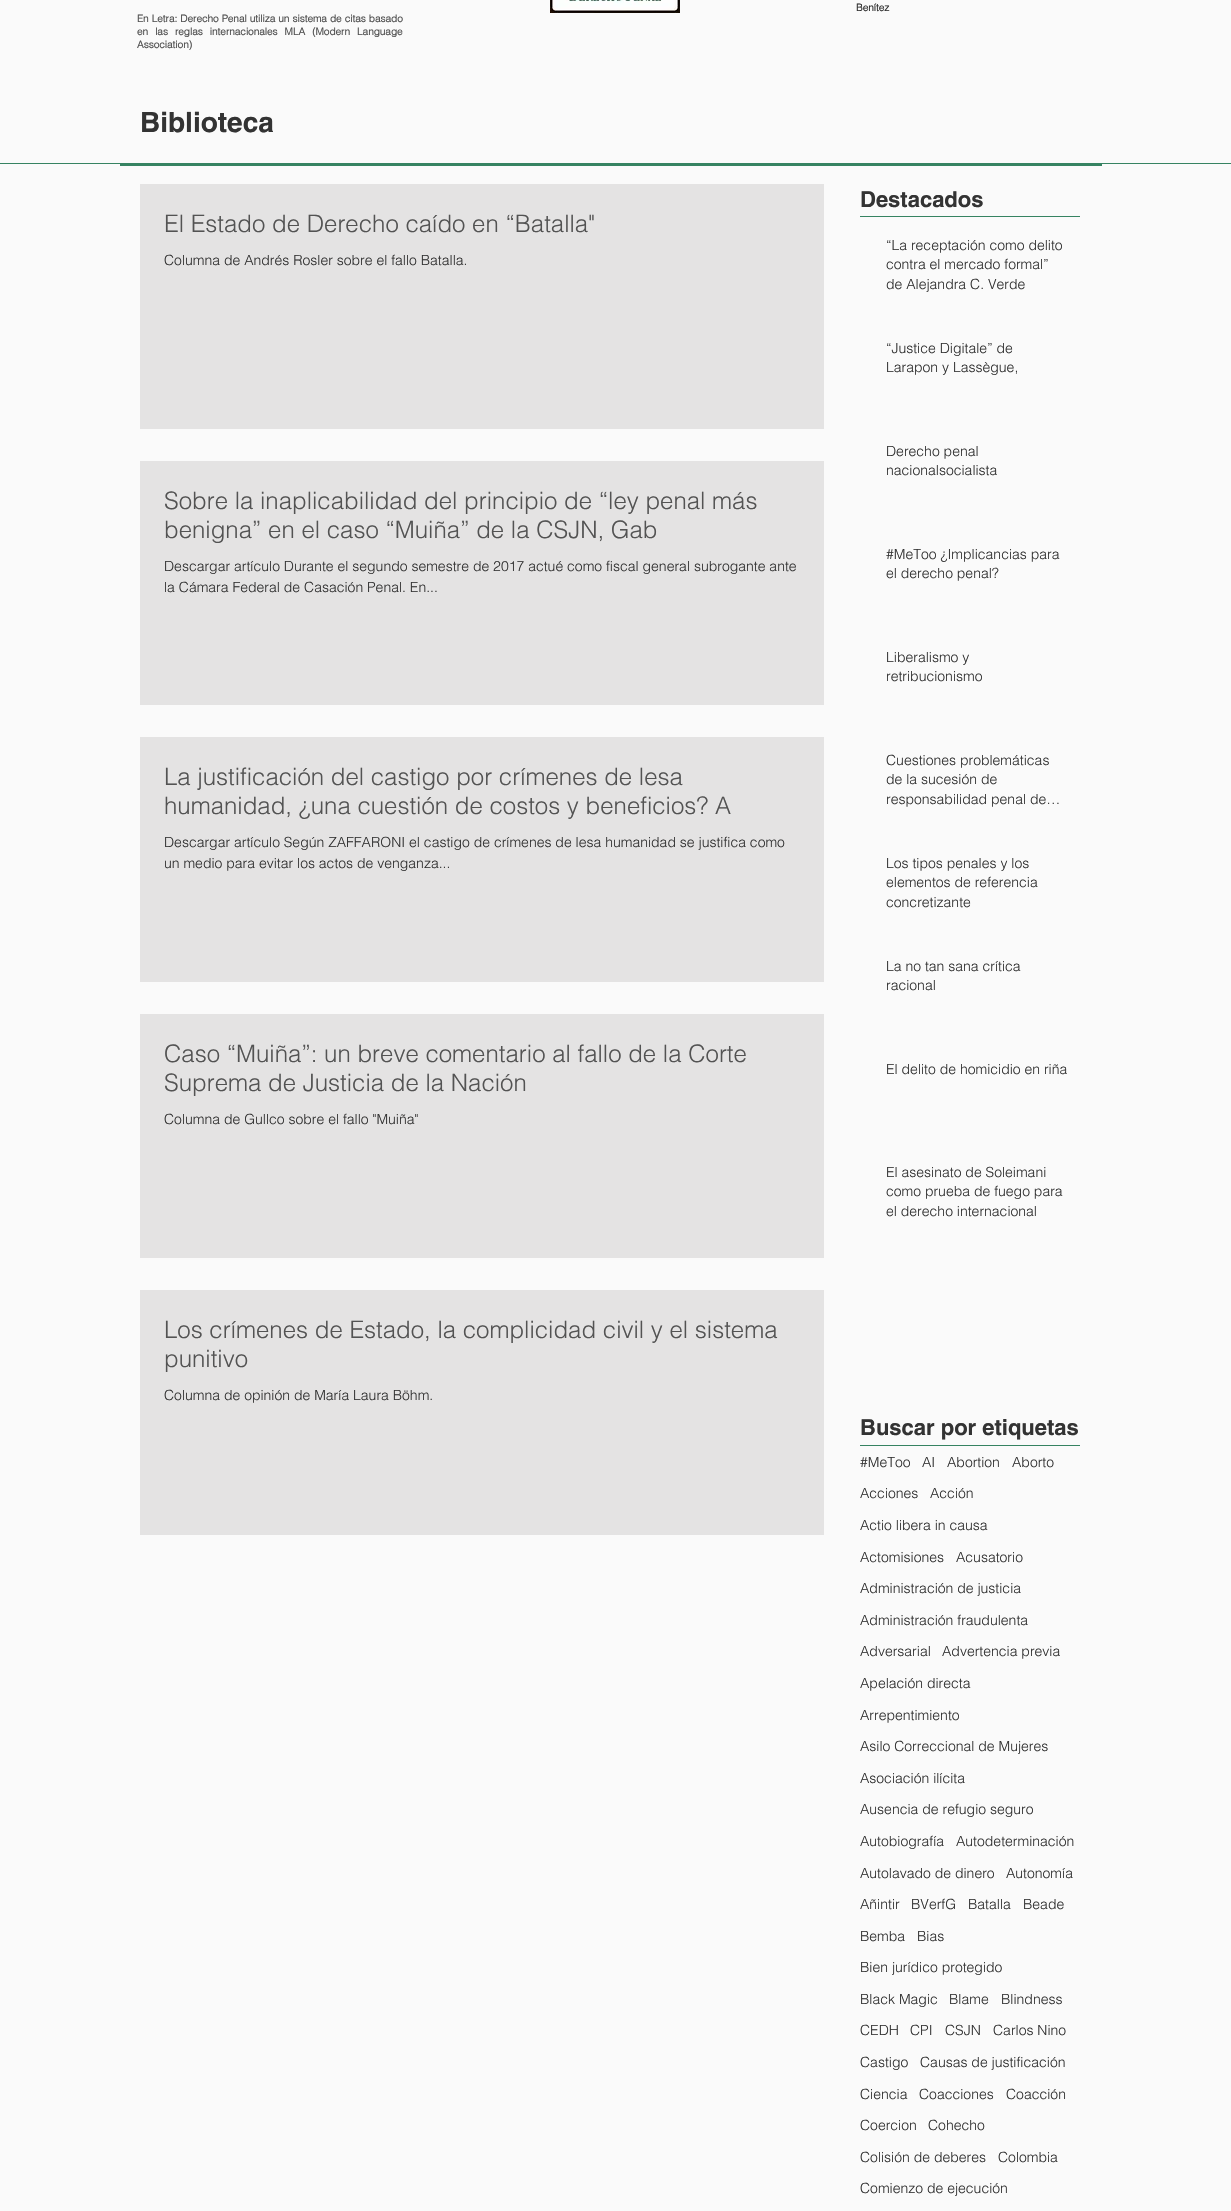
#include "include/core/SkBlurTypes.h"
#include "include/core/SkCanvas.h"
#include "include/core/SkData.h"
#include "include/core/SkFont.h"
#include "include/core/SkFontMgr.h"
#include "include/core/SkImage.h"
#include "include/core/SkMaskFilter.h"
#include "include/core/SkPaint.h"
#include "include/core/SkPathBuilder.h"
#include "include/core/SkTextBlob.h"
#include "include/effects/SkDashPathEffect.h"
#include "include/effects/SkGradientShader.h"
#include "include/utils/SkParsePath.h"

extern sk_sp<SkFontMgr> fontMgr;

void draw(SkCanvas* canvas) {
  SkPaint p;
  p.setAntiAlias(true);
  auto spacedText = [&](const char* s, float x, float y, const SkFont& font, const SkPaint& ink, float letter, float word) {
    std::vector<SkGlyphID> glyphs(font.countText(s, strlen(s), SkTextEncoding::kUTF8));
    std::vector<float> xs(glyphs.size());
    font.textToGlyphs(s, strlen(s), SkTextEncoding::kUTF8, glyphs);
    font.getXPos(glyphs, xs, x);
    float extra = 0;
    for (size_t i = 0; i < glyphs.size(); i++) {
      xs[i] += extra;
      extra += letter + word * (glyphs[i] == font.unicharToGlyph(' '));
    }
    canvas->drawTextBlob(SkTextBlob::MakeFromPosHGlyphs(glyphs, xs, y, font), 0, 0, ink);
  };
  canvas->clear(SkColorSetRGB(250, 250, 250));
  canvas->drawImageRect(SkImages::DeferredFromEncodedData(SkData::MakeFromFileName("images/1.png")), SkRect::MakeLTRB(550, 0, 680, 13), SkSamplingOptions());
  p.setColor(SkColorSetRGB(54, 131, 98));
  canvas->drawRect(SkRect::MakeLTRB(0, 163, 1231, 164), p);
  canvas->drawRect(SkRect::MakeLTRB(120, 164, 1102, 166), p);
  p.setColor(SkColorSetRGB(228, 227, 227));
  canvas->drawRect(SkRect::MakeLTRB(140, 184, 824, 429), p);
  canvas->drawRect(SkRect::MakeLTRB(140, 461, 824, 705), p);
  canvas->drawRect(SkRect::MakeLTRB(140, 737, 824, 982), p);
  canvas->drawRect(SkRect::MakeLTRB(140, 1014, 824, 1258), p);
  canvas->drawRect(SkRect::MakeLTRB(140, 1290, 824, 1535), p);
  p.setColor(SkColorSetRGB(54, 131, 98));
  canvas->drawRect(SkRect::MakeLTRB(860, 216, 1080, 217), p);
  canvas->drawRect(SkRect::MakeLTRB(860, 1445, 1080, 1446), p);
  SkFont font1(fontMgr->matchFamilyStyle("helvetica", SkFontStyle::Bold()), 10);
  font1.setSubpixel(true);
  p.setColor(SkColorSetRGB(51, 51, 51));
  canvas->drawString("Benítez", 856, 11, font1, p);
  p.setColor(SkColorSetRGB(83, 83, 83));
  spacedText("En Letra: Derecho Penal utiliza un sistema de citas basado", 137, 22, font1, p, 0, 0.25f);
  spacedText("en las reglas internacionales MLA (Modern Language", 137, 35, font1, p, 0, 4.25f);
  canvas->drawString("Association)", 137, 48, font1, p);
  SkFont font2(fontMgr->matchFamilyStyle("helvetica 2", SkFontStyle::Bold()), 28);
  font2.setSubpixel(true);
  p.setColor(SkColorSetRGB(51, 51, 51));
  canvas->drawString("Biblioteca", 140, 132, font2, p);
  SkFont font3(fontMgr->matchFamilyStyle("helvetica 2", SkFontStyle::Bold()), 22);
  font3.setSubpixel(true);
  canvas->drawString("Destacados", 860, 207, font3, p);
  SkFont font4(fontMgr->matchFamilyStyle("helvetica", SkFontStyle(300, SkFontStyle::kNormal_Width, SkFontStyle::kUpright_Slant)), 24);
  font4.setSubpixel(true);
  p.setColor(SkColorSetRGB(83, 83, 83));
  canvas->drawString("El Estado de Derecho caído en “Batalla\"", 164, 232, font4, p);
  SkFont font5(fontMgr->matchFamilyStyle("helvetica", SkFontStyle(300, SkFontStyle::kNormal_Width, SkFontStyle::kUpright_Slant)), 14);
  font5.setSubpixel(true);
  p.setColor(SkColorSetRGB(51, 51, 51));
  canvas->drawString("Columna de Andrés Rosler sobre el fallo Batalla.", 164, 265, font5, p);
  p.setColor(SkColorSetRGB(83, 83, 83));
  canvas->drawString("Sobre la inaplicabilidad del principio de “ley penal más", 164, 509, font4, p);
  canvas->drawString("benigna” en el caso “Muiña” de la CSJN, Gab", 164, 538, font4, p);
  p.setColor(SkColorSetRGB(51, 51, 51));
  canvas->drawString("Descargar artículo Durante el segundo semestre de 2017 actué como fiscal general subrogante ante", 164, 571, font5, p);
  canvas->drawString("la Cámara Federal de Casación Penal. En...", 164, 592, font5, p);
  p.setColor(SkColorSetRGB(83, 83, 83));
  canvas->drawString("La justificación del castigo por crímenes de lesa", 164, 785, font4, p);
  canvas->drawString("humanidad, ¿una cuestión de costos y beneficios? A", 164, 814, font4, p);
  p.setColor(SkColorSetRGB(51, 51, 51));
  canvas->drawString("Descargar artículo Según ZAFFARONI el castigo de crímenes de lesa humanidad se justifica como", 164, 847, font5, p);
  canvas->drawString("un medio para evitar los actos de venganza...", 164, 868, font5, p);
  p.setColor(SkColorSetRGB(83, 83, 83));
  canvas->drawString("Caso “Muiña”: un breve comentario al fallo de la Corte", 164, 1062, font4, p);
  canvas->drawString("Suprema de Justicia de la Nación", 164, 1091, font4, p);
  p.setColor(SkColorSetRGB(51, 51, 51));
  canvas->drawString("Columna de Gullco sobre el fallo \"Muiña\"", 164, 1124, font5, p);
  p.setColor(SkColorSetRGB(83, 83, 83));
  canvas->drawString("Los crímenes de Estado, la complicidad civil y el sistema", 164, 1338, font4, p);
  canvas->drawString("punitivo", 164, 1367, font4, p);
  p.setColor(SkColorSetRGB(51, 51, 51));
  canvas->drawString("Columna de opinión de María Laura Böhm.", 164, 1400, font5, p);
  canvas->drawString("“La receptación como delito", 886, 250, font5, p);
  canvas->drawString("contra el mercado formal”", 886, 269, font5, p);
  canvas->drawString("de Alejandra C. Verde", 886, 289, font5, p);
  canvas->drawString("“Justice Digitale” de", 886, 353, font5, p);
  canvas->drawString("Larapon y Lassègue,", 886, 372, font5, p);
  canvas->drawString("Derecho penal", 886, 456, font5, p);
  canvas->drawString("nacionalsocialista", 886, 475, font5, p);
  canvas->drawString("#MeToo ¿Implicancias para", 886, 559, font5, p);
  canvas->drawString("el derecho penal?", 886, 578, font5, p);
  canvas->drawString("Liberalismo y", 886, 662, font5, p);
  canvas->drawString("retribucionismo", 886, 681, font5, p);
  canvas->drawString("Cuestiones problemáticas", 886, 765, font5, p);
  canvas->drawString("de la sucesión de", 886, 784, font5, p);
  canvas->drawString("responsabilidad penal de…", 886, 804, font5, p);
  canvas->drawString("Los tipos penales y los", 886, 868, font5, p);
  canvas->drawString("elementos de referencia", 886, 887, font5, p);
  canvas->drawString("concretizante", 886, 907, font5, p);
  canvas->drawString("La no tan sana crítica", 886, 971, font5, p);
  canvas->drawString("racional", 886, 990, font5, p);
  canvas->drawString("El delito de homicidio en riña", 886, 1074, font5, p);
  canvas->drawString("El asesinato de Soleimani", 886, 1177, font5, p);
  canvas->drawString("como prueba de fuego para", 886, 1196, font5, p);
  canvas->drawString("el derecho internacional", 886, 1216, font5, p);
  canvas->drawString("Buscar por etiquetas", 860, 1435, font3, p);
  canvas->drawString("#MeToo", 860, 1467, font5, p);
  canvas->drawString("AI", 922, 1467, font5, p);
  canvas->drawString("Abortion", 947, 1467, font5, p);
  canvas->drawString("Aborto", 1012, 1467, font5, p);
  canvas->drawString("Acciones", 860, 1498, font5, p);
  canvas->drawString("Acción", 930, 1498, font5, p);
  canvas->drawString("Actio libera in causa", 860, 1530, font5, p);
  canvas->drawString("Actomisiones", 860, 1562, font5, p);
  canvas->drawString("Acusatorio", 956, 1562, font5, p);
  canvas->drawString("Administración de justicia", 860, 1593, font5, p);
  canvas->drawString("Administración fraudulenta", 860, 1625, font5, p);
  canvas->drawString("Adversarial", 860, 1656, font5, p);
  canvas->drawString("Advertencia previa", 942, 1656, font5, p);
  canvas->drawString("Apelación directa", 860, 1688, font5, p);
  canvas->drawString("Arrepentimiento", 860, 1720, font5, p);
  canvas->drawString("Asilo Correccional de Mujeres", 860, 1751, font5, p);
  canvas->drawString("Asociación ilícita", 860, 1783, font5, p);
  canvas->drawString("Ausencia de refugio seguro", 860, 1814, font5, p);
  canvas->drawString("Autobiografía", 860, 1846, font5, p);
  canvas->drawString("Autodeterminación", 956, 1846, font5, p);
  canvas->drawString("Autolavado de dinero", 860, 1878, font5, p);
  canvas->drawString("Autonomía", 1006, 1878, font5, p);
  canvas->drawString("Añintir", 860, 1909, font5, p);
  canvas->drawString("BVerfG", 911, 1909, font5, p);
  canvas->drawString("Batalla", 968, 1909, font5, p);
  canvas->drawString("Beade", 1023, 1909, font5, p);
  canvas->drawString("Bemba", 860, 1941, font5, p);
  canvas->drawString("Bias", 917, 1941, font5, p);
  canvas->drawString("Bien jurídico protegido", 860, 1972, font5, p);
  canvas->drawString("Black Magic", 860, 2004, font5, p);
  canvas->drawString("Blame", 949, 2004, font5, p);
  canvas->drawString("Blindness", 1001, 2004, font5, p);
  canvas->drawString("CEDH", 860, 2035, font5, p);
  canvas->drawString("CPI", 910, 2035, font5, p);
  canvas->drawString("CSJN", 945, 2035, font5, p);
  canvas->drawString("Carlos Nino", 993, 2035, font5, p);
  canvas->drawString("Castigo", 860, 2067, font5, p);
  canvas->drawString("Causas de justificación", 920, 2067, font5, p);
  canvas->drawString("Ciencia", 860, 2099, font5, p);
  canvas->drawString("Coacciones", 919, 2099, font5, p);
  canvas->drawString("Coacción", 1006, 2099, font5, p);
  canvas->drawString("Coercion", 860, 2130, font5, p);
  canvas->drawString("Cohecho", 928, 2130, font5, p);
  canvas->drawString("Colisión de deberes", 860, 2162, font5, p);
  canvas->drawString("Colombia", 998, 2162, font5, p);
  canvas->drawString("Comienzo de ejecución", 860, 2193, font5, p);
}
